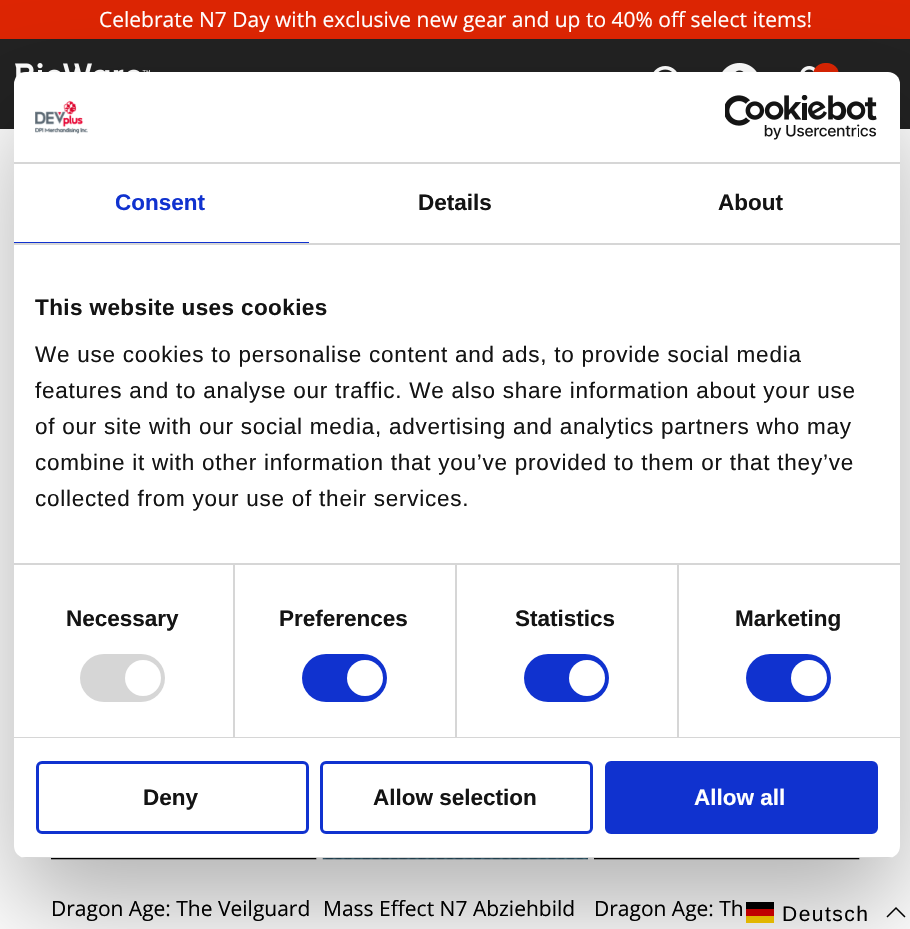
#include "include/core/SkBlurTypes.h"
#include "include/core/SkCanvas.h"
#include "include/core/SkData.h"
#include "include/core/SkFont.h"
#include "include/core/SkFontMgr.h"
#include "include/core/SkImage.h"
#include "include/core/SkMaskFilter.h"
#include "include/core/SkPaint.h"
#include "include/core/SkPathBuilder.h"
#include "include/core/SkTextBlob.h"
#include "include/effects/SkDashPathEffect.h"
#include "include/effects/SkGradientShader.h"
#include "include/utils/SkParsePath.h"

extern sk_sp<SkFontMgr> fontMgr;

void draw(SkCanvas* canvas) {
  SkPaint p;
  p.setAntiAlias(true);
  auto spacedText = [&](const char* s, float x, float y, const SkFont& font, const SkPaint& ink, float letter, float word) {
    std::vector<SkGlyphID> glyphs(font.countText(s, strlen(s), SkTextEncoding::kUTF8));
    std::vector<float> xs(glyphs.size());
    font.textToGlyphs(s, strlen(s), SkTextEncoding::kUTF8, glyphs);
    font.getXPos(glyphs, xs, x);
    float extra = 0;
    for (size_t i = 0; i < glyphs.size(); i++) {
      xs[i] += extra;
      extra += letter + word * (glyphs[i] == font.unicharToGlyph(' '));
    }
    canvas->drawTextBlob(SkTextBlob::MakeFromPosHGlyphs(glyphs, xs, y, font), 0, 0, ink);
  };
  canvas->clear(SK_ColorWHITE);
  p.setColor(SkColorSetRGB(221, 37, 3));
  canvas->drawRect(SkRect::MakeLTRB(0, 0, 910, 39), p);
  p.setColor(SkColorSetRGB(34, 34, 34));
  canvas->drawRect(SkRect::MakeLTRB(0, 39, 910, 129), p);
  canvas->drawImageRect(SkImages::DeferredFromEncodedData(SkData::MakeFromFileName("images/1.png")), SkRect::MakeLTRB(15, 63, 150, 78), SkSamplingOptions());
  canvas->drawImageRect(SkImages::DeferredFromEncodedData(SkData::MakeFromFileName("images/2.png")), SkRect::MakeLTRB(653, 66, 677, 72), SkSamplingOptions());
  canvas->drawImageRect(SkImages::DeferredFromEncodedData(SkData::MakeFromFileName("images/3.png")), SkRect::MakeLTRB(722, 63, 757, 72), SkSamplingOptions());
  canvas->drawImageRect(SkImages::DeferredFromEncodedData(SkData::MakeFromFileName("images/4.png")), SkRect::MakeLTRB(800, 66, 816, 72), SkSamplingOptions());
  p.setColor(SkColorSetRGB(221, 37, 3));
  canvas->drawRoundRect(SkRect::MakeLTRB(813, 63, 839, 87), 12, 12, p);
  p.setColor(SkColorSetRGB(243, 243, 243));
  canvas->drawRect(SkRect::MakeLTRB(51, 858, 317, 860), p);
  canvas->drawImageRect(SkImages::DeferredFromEncodedData(SkData::MakeFromFileName("images/7.png")), SkRect::MakeLTRB(51, 858, 317, 860), SkSamplingOptions());
  canvas->drawRect(SkRect::MakeLTRB(323, 859, 588, 860), p);
  canvas->drawImageRect(SkImages::DeferredFromEncodedData(SkData::MakeFromFileName("images/8.png")), SkRect::MakeLTRB(322, 858, 588, 860), SkSamplingOptions());
  canvas->drawRect(SkRect::MakeLTRB(594, 858, 860, 860), p);
  canvas->drawImageRect(SkImages::DeferredFromEncodedData(SkData::MakeFromFileName("images/9.png")), SkRect::MakeLTRB(594, 858, 860, 860), SkSamplingOptions());
  p.setColor(SkColorSetRGB(255, 206, 0));
  canvas->drawRect(SkRect::MakeLTRB(746, 916, 774, 923), p);
  p.setColor(SK_ColorBLACK);
  canvas->drawRect(SkRect::MakeLTRB(746, 902, 774, 909), p);
  p.setColor(SkColorSetRGB(221, 0, 0));
  canvas->drawRect(SkRect::MakeLTRB(746, 909, 774, 916), p);
  p.setStyle(SkPaint::kStroke_Style);
  p.setStrokeWidth(1.5f);
  p.setColor(SK_ColorBLACK);
  canvas->drawPath(SkPathBuilder().moveTo(905, 917).lineTo(896, 908).lineTo(887, 917).detach(), p);
  p.setStyle(SkPaint::kFill_Style);
  p.setColor(SkColorSetARGB(77, 0, 0, 0));
  p.setMaskFilter(SkMaskFilter::MakeBlur(kNormal_SkBlurStyle, 51));
  canvas->drawRoundRect(SkRect::MakeLTRB(14, 120, 900, 906), 12, 12, p);
  p.setMaskFilter(nullptr);
  p.setColor(SK_ColorWHITE);
  canvas->drawRoundRect(SkRect::MakeLTRB(14, 72, 900, 858), 12, 12, p);
  p.setColor(SkColorSetRGB(214, 214, 214));
  canvas->drawRect(SkRect::MakeLTRB(14, 162, 900, 164), p);
  canvas->drawImageRect(SkImages::DeferredFromEncodedData(SkData::MakeFromFileName("images/5.png")), SkRect::MakeLTRB(35, 100, 88, 134), SkSamplingOptions());
  canvas->drawImageRect(SkImages::DeferredFromEncodedData(SkData::MakeFromFileName("images/6.png")), SkRect::MakeLTRB(725, 95, 877, 140), SkSamplingOptions());
  canvas->drawRect(SkRect::MakeLTRB(14, 243, 900, 245), p);
  p.setColor(SkColorSetRGB(16, 50, 207));
  canvas->drawRect(SkRect::MakeLTRB(14, 242, 309, 243), p);
  p.setColor(SkColorSetRGB(214, 214, 214));
  canvas->drawRect(SkRect::MakeLTRB(233, 564, 235, 737), p);
  canvas->drawRect(SkRect::MakeLTRB(455, 564, 457, 737), p);
  canvas->drawRect(SkRect::MakeLTRB(677, 564, 679, 737), p);
  canvas->drawRect(SkRect::MakeLTRB(14, 563, 900, 565), p);
  canvas->drawRect(SkRect::MakeLTRB(14, 737, 900, 738), p);
  canvas->drawRoundRect(SkRect::MakeLTRB(80, 654, 165, 702), 24, 24, p);
  p.setColor(SK_ColorWHITE);
  canvas->drawCircle(143, 678, 18, p);
  p.setColor(SkColorSetRGB(16, 50, 207));
  canvas->drawRoundRect(SkRect::MakeLTRB(302, 654, 387, 702), 24, 24, p);
  p.setColor(SK_ColorWHITE);
  canvas->drawCircle(365, 678, 18, p);
  p.setColor(SkColorSetRGB(16, 50, 207));
  canvas->drawRoundRect(SkRect::MakeLTRB(524, 654, 609, 702), 24, 24, p);
  p.setColor(SK_ColorWHITE);
  canvas->drawCircle(587, 678, 18, p);
  p.setColor(SkColorSetRGB(16, 50, 207));
  canvas->drawRoundRect(SkRect::MakeLTRB(746, 654, 831, 702), 24, 24, p);
  p.setColor(SK_ColorWHITE);
  canvas->drawCircle(809, 678, 18, p);
  canvas->save();
  canvas->clipPath(SkPathBuilder().moveTo(26, 72).lineTo(888, 72).cubicTo(894.5f, 72, 900, 77.5f, 900, 84).lineTo(900, 846).cubicTo(900, 852.5f, 894.5f, 858, 888, 858).lineTo(26, 858).cubicTo(19.5f, 858, 14, 852.5f, 14, 846).lineTo(14, 84).cubicTo(14, 77.5f, 19.5f, 72, 26, 72).close().detach(), true);
  p.setColor(SkColorSetRGB(214, 214, 214));
  canvas->drawRect(SkRect::MakeLTRB(14, 857, 900, 858), p);
  canvas->restore();
  p.setStyle(SkPaint::kStroke_Style);
  p.setStrokeWidth(3);
  p.setColor(SkColorSetRGB(16, 50, 207));
  canvas->drawRoundRect(SkRect::MakeLTRB(37.5f, 762.5f, 307.5f, 832.5f), 4.5f, 4.5f, p);
  canvas->drawRoundRect(SkRect::MakeLTRB(321.5f, 762.5f, 591.5f, 832.5f), 4.5f, 4.5f, p);
  p.setStyle(SkPaint::kFill_Style);
  canvas->drawRoundRect(SkRect::MakeLTRB(606.5f, 762.5f, 876.5f, 832.5f), 4.5f, 4.5f, p);
  p.setStyle(SkPaint::kStroke_Style);
  canvas->drawRoundRect(SkRect::MakeLTRB(606.5f, 762.5f, 876.5f, 832.5f), 4.5f, 4.5f, p);
  SkFont font1(fontMgr->matchFamilyStyle("Open Sans", SkFontStyle::Normal()), 21);
  font1.setSubpixel(true);
  p.setStyle(SkPaint::kFill_Style);
  p.setColor(SK_ColorWHITE);
  canvas->drawString("Celebrate N7 Day with exclusive new gear and up to 40% off select items!", 99, 27, font1, p);
  SkFont font2(fontMgr->matchFamilyStyle("Liberation Sans", SkFontStyle::Bold()), 22.5f);
  font2.setSubpixel(true);
  p.setColor(SkColorSetRGB(16, 50, 207));
  canvas->drawString("Consent", 115, 210, font2, p);
  p.setColor(SkColorSetRGB(20, 20, 20));
  canvas->drawString("Details", 418, 210, font2, p);
  canvas->drawString("About", 718, 210, font2, p);
  spacedText("This website uses cookies", 35, 315, font2, p, 0.4f, 0);
  SkFont font3(fontMgr->matchFamilyStyle("Liberation Sans", SkFontStyle::Normal()), 22.5f);
  font3.setSubpixel(true);
  spacedText("We use cookies to personalise content and ads, to provide social media", 35, 362, font3, p, 0.75f, 0);
  spacedText("features and to analyse our traffic. We also share information about your use", 35, 398, font3, p, 0.75f, 0);
  spacedText("of our site with our social media, advertising and analytics partners who may", 35, 434, font3, p, 0.75f, 0);
  spacedText("combine it with other information that you’ve provided to them or that they’ve", 35, 470, font3, p, 0.75f, 0);
  spacedText("collected from your use of their services.", 35, 506, font3, p, 0.75f, 0);
  canvas->drawString("Necessary", 66, 626, font2, p);
  canvas->drawString("Preferences", 279, 626, font2, p);
  canvas->drawString("Statistics", 515, 626, font2, p);
  canvas->drawString("Marketing", 735, 626, font2, p);
  canvas->drawString("Deny", 143, 805, font2, p);
  canvas->drawString("Allow selection", 373, 805, font2, p);
  p.setColor(SK_ColorWHITE);
  canvas->drawString("Allow all", 694, 805, font2, p);
  p.setColor(SK_ColorBLACK);
  canvas->drawString("Dragon Age: The Veilguard", 51, 916, font1, p);
  canvas->drawString("Mass Effect N7 Abziehbild", 323, 916, font1, p);
  canvas->drawString("Dragon Age: Th", 594, 916, font1, p);
  SkFont font4(fontMgr->matchFamilyStyle("Liberation Sans", SkFontStyle::Normal()), 21);
  font4.setSubpixel(true);
  spacedText("Deutsch", 782, 921, font4, p, 1.5f, 0);
}
